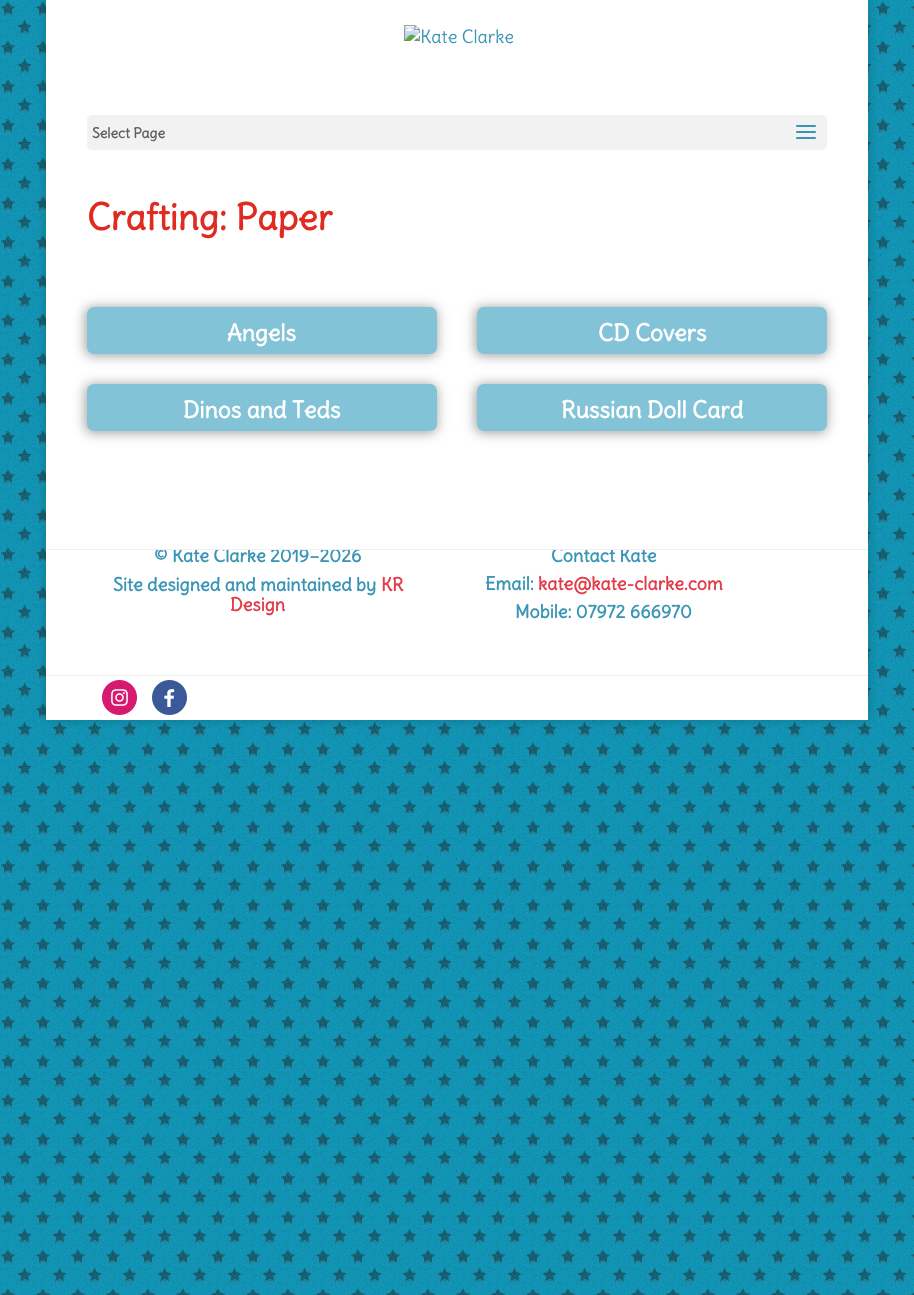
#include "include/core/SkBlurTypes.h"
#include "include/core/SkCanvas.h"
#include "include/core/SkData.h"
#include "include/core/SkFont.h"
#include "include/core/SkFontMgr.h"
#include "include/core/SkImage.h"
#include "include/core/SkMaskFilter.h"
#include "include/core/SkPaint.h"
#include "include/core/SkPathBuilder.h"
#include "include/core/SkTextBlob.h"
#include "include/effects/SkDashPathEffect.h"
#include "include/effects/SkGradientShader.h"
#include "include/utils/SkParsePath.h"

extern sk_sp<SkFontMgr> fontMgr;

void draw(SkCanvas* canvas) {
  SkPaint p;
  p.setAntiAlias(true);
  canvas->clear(SkColorSetRGB(18, 150, 183));
  canvas->drawImageRect(SkImages::DeferredFromEncodedData(SkData::MakeFromFileName("images/1.png")), SkRect::MakeLTRB(0, 0, 914, 1295), SkSamplingOptions());
  p.setColor(SkColorSetARGB(51, 0, 0, 0));
  p.setMaskFilter(SkMaskFilter::MakeBlur(kNormal_SkBlurStyle, 5));
  canvas->drawRect(SkRect::MakeLTRB(46, 0, 868, 720), p);
  p.setMaskFilter(nullptr);
  p.setColor(SK_ColorWHITE);
  canvas->drawRect(SkRect::MakeLTRB(46, 550, 868, 720), p);
  canvas->drawImageRect(SkImages::DeferredFromEncodedData(SkData::MakeFromFileName("images/4.png")), SkRect::MakeLTRB(102, 680, 137, 715), SkSamplingOptions());
  canvas->drawImageRect(SkImages::DeferredFromEncodedData(SkData::MakeFromFileName("images/5.png")), SkRect::MakeLTRB(152, 680, 187, 715), SkSamplingOptions());
  p.setColor(SkColorSetRGB(239, 239, 239));
  canvas->drawRect(SkRect::MakeLTRB(46, 675, 868, 676), p);
  SkFont font1(fontMgr->matchFamilyStyle("Delius", SkFontStyle::Bold()), 18);
  font1.setSubpixel(true);
  p.setColor(SkColorSetRGB(57, 149, 181));
  canvas->drawString("© Kate Clarke 2019–2026", 154, 562, font1, p);
  canvas->drawString("Site designed and maintained by", 113, 591, font1, p);
  p.setColor(SkColorSetRGB(227, 59, 72));
  canvas->drawString("KR", 381, 591, font1, p);
  canvas->drawString("Design", 230, 611, font1, p);
  p.setColor(SkColorSetRGB(57, 149, 181));
  canvas->drawString("Contact Kate", 551, 562, font1, p);
  p.setColor(SK_ColorWHITE);
  canvas->drawRect(SkRect::MakeLTRB(46, 0, 868, 549), p);
  p.setColor(SkColorSetRGB(242, 242, 242));
  canvas->drawRoundRect(SkRect::MakeLTRB(87, 115, 827, 150), 5, 5, p);
  canvas->drawImageRect(SkImages::DeferredFromEncodedData(SkData::MakeFromFileName("images/3.png")), SkRect::MakeLTRB(796, 125, 816, 139), SkSamplingOptions());
  SkFont font2(fontMgr->matchFamilyStyle("Delius", SkFontStyle::Bold()), 14);
  font2.setSubpixel(true);
  p.setColor(SkColorSetRGB(97, 97, 97));
  canvas->drawString("Select Page", 92, 138, font2, p);
  canvas->drawImageRect(SkImages::DeferredFromEncodedData(SkData::MakeFromFileName("images/2.png")), SkRect::MakeLTRB(404, 25, 513, 44), SkSamplingOptions());
  p.setColor(SkColorSetARGB(92, 0, 0, 0));
  p.setMaskFilter(SkMaskFilter::MakeBlur(kNormal_SkBlurStyle, 6));
  canvas->drawRoundRect(SkRect::MakeLTRB(475, 384, 827, 433), 8, 8, p);
  p.setMaskFilter(nullptr);
  p.setColor(SkColorSetRGB(131, 195, 215));
  canvas->drawRoundRect(SkRect::MakeLTRB(477, 384, 827, 431), 7, 7, p);
  SkFont font3(fontMgr->matchFamilyStyle("Delius", SkFontStyle::Bold()), 23);
  font3.setSubpixel(true);
  p.setColor(SK_ColorWHITE);
  canvas->drawString("Russian Doll Card", 561, 418, font3, p);
  p.setColor(SkColorSetARGB(92, 0, 0, 0));
  p.setMaskFilter(SkMaskFilter::MakeBlur(kNormal_SkBlurStyle, 6));
  canvas->drawRoundRect(SkRect::MakeLTRB(85, 384, 437, 433), 8, 8, p);
  p.setMaskFilter(nullptr);
  p.setColor(SkColorSetRGB(131, 195, 215));
  canvas->drawRoundRect(SkRect::MakeLTRB(87, 384, 437, 431), 7, 7, p);
  p.setColor(SK_ColorWHITE);
  canvas->drawString("Dinos and Teds", 183, 418, font3, p);
  p.setColor(SkColorSetARGB(92, 0, 0, 0));
  p.setMaskFilter(SkMaskFilter::MakeBlur(kNormal_SkBlurStyle, 6));
  canvas->drawRoundRect(SkRect::MakeLTRB(475, 307, 827, 356), 8, 8, p);
  p.setMaskFilter(nullptr);
  p.setColor(SkColorSetRGB(131, 195, 215));
  canvas->drawRoundRect(SkRect::MakeLTRB(477, 307, 827, 354), 7, 7, p);
  p.setColor(SK_ColorWHITE);
  canvas->drawString("CD Covers", 598, 341, font3, p);
  p.setColor(SkColorSetARGB(92, 0, 0, 0));
  p.setMaskFilter(SkMaskFilter::MakeBlur(kNormal_SkBlurStyle, 6));
  canvas->drawRoundRect(SkRect::MakeLTRB(85, 307, 437, 356), 8, 8, p);
  p.setMaskFilter(nullptr);
  p.setColor(SkColorSetRGB(131, 195, 215));
  canvas->drawRoundRect(SkRect::MakeLTRB(87, 307, 437, 354), 7, 7, p);
  p.setColor(SK_ColorWHITE);
  canvas->drawString("Angels", 227, 341, font3, p);
  SkFont font4(fontMgr->matchFamilyStyle("Delius", SkFontStyle::Bold()), 36);
  font4.setSubpixel(true);
  p.setColor(SkColorSetRGB(224, 43, 32));
  canvas->drawString("Crafting: Paper", 87, 230, font4, p);
  p.setColor(SkColorSetRGB(239, 239, 239));
  canvas->drawRect(SkRect::MakeLTRB(46, 549, 868, 550), p);
  p.setColor(SkColorSetRGB(57, 149, 181));
  canvas->drawString("Email:", 485, 590, font1, p);
  p.setColor(SkColorSetRGB(227, 59, 72));
  canvas->drawString("kate@kate-clarke.com", 538, 590, font1, p);
  p.setColor(SkColorSetRGB(57, 149, 181));
  canvas->drawString("Mobile: 07972 666970", 515, 618, font1, p);
}
